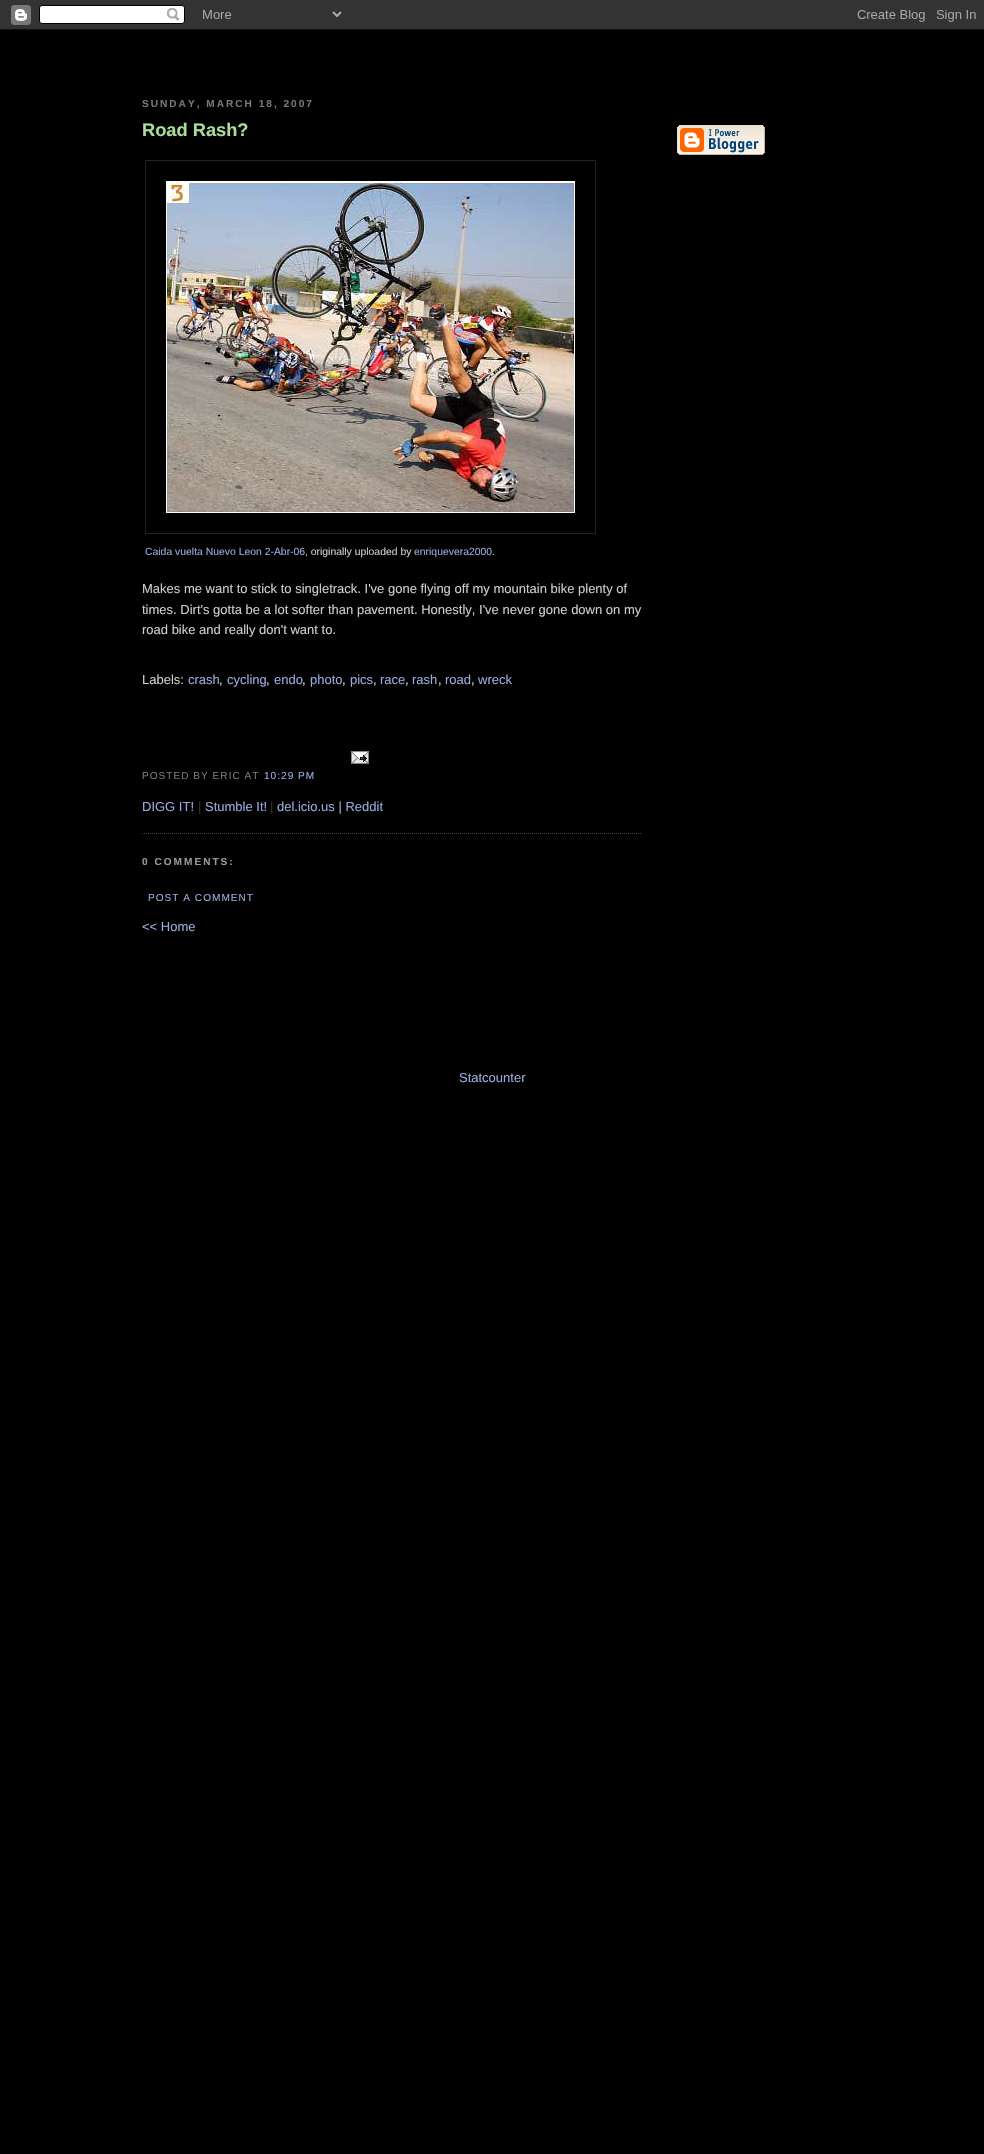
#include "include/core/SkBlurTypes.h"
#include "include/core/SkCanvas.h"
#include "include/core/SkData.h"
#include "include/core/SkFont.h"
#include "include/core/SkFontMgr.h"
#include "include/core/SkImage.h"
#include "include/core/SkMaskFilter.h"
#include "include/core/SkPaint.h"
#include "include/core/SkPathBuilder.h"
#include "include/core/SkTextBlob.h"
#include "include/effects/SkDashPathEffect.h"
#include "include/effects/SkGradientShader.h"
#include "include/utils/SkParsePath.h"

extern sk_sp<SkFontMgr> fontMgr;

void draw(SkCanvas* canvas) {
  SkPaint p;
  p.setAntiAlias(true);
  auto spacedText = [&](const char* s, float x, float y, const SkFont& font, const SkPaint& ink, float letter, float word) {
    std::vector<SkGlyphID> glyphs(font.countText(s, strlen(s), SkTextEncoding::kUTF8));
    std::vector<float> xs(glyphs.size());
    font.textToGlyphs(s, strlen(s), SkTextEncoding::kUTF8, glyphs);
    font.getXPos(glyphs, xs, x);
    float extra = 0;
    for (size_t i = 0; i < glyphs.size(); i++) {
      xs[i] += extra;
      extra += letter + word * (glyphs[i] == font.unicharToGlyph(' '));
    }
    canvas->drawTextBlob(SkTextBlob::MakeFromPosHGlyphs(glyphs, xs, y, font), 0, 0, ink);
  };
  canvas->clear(SK_ColorBLACK);
  canvas->drawImageRect(SkImages::DeferredFromEncodedData(SkData::MakeFromFileName("images/1.png")), SkRect::MakeLTRB(0, 0, 984, 30), SkSamplingOptions());
  p.setStyle(SkPaint::kStroke_Style);
  p.setStrokeWidth(1);
  p.setColor(SkColorSetRGB(68, 68, 68));
  p.setPathEffect(SkDashPathEffect::Make({{1, 1}}, 0));
  canvas->drawPath(SkPathBuilder().moveTo(142, 833.5f).lineTo(642, 833.5f).detach(), p);
  p.setPathEffect(nullptr);
  p.setColor(SkColorSetRGB(34, 34, 34));
  canvas->drawRect(SkRect::MakeLTRB(145.5f, 160.5f, 595.5f, 533.5f), p);
  canvas->drawImageRect(SkImages::DeferredFromEncodedData(SkData::MakeFromFileName("images/2.png")), SkRect::MakeLTRB(166, 181, 575, 513), SkSamplingOptions());
  canvas->drawImageRect(SkImages::DeferredFromEncodedData(SkData::MakeFromFileName("images/3.png")), SkRect::MakeLTRB(351, 751, 369, 764), SkSamplingOptions());
  canvas->drawImageRect(SkImages::DeferredFromEncodedData(SkData::MakeFromFileName("images/4.png")), SkRect::MakeLTRB(677, 125, 765, 155), SkSamplingOptions());
  SkFont font1(fontMgr->matchFamilyStyle("Liberation Sans", SkFontStyle::Bold()), 10.1f);
  font1.setSubpixel(true);
  p.setStyle(SkPaint::kFill_Style);
  p.setColor(SkColorSetRGB(119, 119, 119));
  spacedText("SUNDAY, MARCH 18, 2007", 142, 107, font1, p, 2, 0);
  SkFont font2(fontMgr->matchFamilyStyle("Liberation Sans", SkFontStyle::Bold()), 18.25f);
  font2.setSubpixel(true);
  p.setColor(SkColorSetRGB(170, 221, 153));
  canvas->drawString("Road Rash?", 142, 136, font2, p);
  SkFont font3(fontMgr->matchFamilyStyle("Liberation Sans", SkFontStyle::Normal()), 10.4f);
  font3.setSubpixel(true);
  p.setColor(SkColorSetRGB(153, 170, 221));
  canvas->drawString("Caida vuelta Nuevo Leon 2-Abr-06", 145, 555, font3, p);
  p.setColor(SkColorSetRGB(204, 204, 204));
  canvas->drawString(", originally uploaded by", 305, 555, font3, p);
  p.setColor(SkColorSetRGB(153, 170, 221));
  canvas->drawString("enriquevera2000", 414, 555, font3, p);
  p.setColor(SkColorSetRGB(204, 204, 204));
  canvas->drawString(".", 492, 555, font3, p);
  SkFont font4(fontMgr->matchFamilyStyle("Liberation Sans", SkFontStyle::Normal()), 13);
  font4.setSubpixel(true);
  canvas->drawString("Makes me want to stick to singletrack. I've gone flying off my mountain bike plenty of", 142, 593, font4, p);
  canvas->drawString("times. Dirt's gotta be a lot softer than pavement. Honestly, I've never gone down on my", 142, 614, font4, p);
  canvas->drawString("road bike and really don't want to.", 142, 634, font4, p);
  canvas->drawString("Labels:", 142, 684, font4, p);
  p.setColor(SkColorSetRGB(153, 170, 221));
  canvas->drawString("crash", 188, 684, font4, p);
  p.setColor(SkColorSetRGB(204, 204, 204));
  canvas->drawString(",", 219, 684, font4, p);
  p.setColor(SkColorSetRGB(153, 170, 221));
  canvas->drawString("cycling", 227, 684, font4, p);
  p.setColor(SkColorSetRGB(204, 204, 204));
  canvas->drawString(",", 266, 684, font4, p);
  p.setColor(SkColorSetRGB(153, 170, 221));
  canvas->drawString("endo", 274, 684, font4, p);
  p.setColor(SkColorSetRGB(204, 204, 204));
  canvas->drawString(",", 302, 684, font4, p);
  p.setColor(SkColorSetRGB(153, 170, 221));
  canvas->drawString("photo", 310, 684, font4, p);
  p.setColor(SkColorSetRGB(204, 204, 204));
  canvas->drawString(",", 342, 684, font4, p);
  p.setColor(SkColorSetRGB(153, 170, 221));
  canvas->drawString("pics", 350, 684, font4, p);
  p.setColor(SkColorSetRGB(204, 204, 204));
  canvas->drawString(",", 373, 684, font4, p);
  p.setColor(SkColorSetRGB(153, 170, 221));
  canvas->drawString("race", 380, 684, font4, p);
  p.setColor(SkColorSetRGB(204, 204, 204));
  canvas->drawString(",", 405, 684, font4, p);
  p.setColor(SkColorSetRGB(153, 170, 221));
  canvas->drawString("rash", 412, 684, font4, p);
  p.setColor(SkColorSetRGB(204, 204, 204));
  canvas->drawString(",", 438, 684, font4, p);
  p.setColor(SkColorSetRGB(153, 170, 221));
  canvas->drawString("road", 445, 684, font4, p);
  p.setColor(SkColorSetRGB(204, 204, 204));
  canvas->drawString(",", 471, 684, font4, p);
  p.setColor(SkColorSetRGB(153, 170, 221));
  canvas->drawString("wreck", 478, 684, font4, p);
  SkFont font5(fontMgr->matchFamilyStyle("Liberation Sans", SkFontStyle::Normal()), 10.1f);
  font5.setSubpixel(true);
  p.setColor(SkColorSetRGB(119, 119, 119));
  spacedText("POSTED BY ERIC AT", 142, 779, font5, p, 1, 0);
  p.setColor(SkColorSetRGB(153, 170, 221));
  spacedText("10:29 PM", 264, 779, font5, p, 1, 0);
  canvas->drawString("DIGG IT!", 142, 811, font4, p);
  p.setColor(SkColorSetRGB(51, 51, 51));
  canvas->drawString("|", 198, 811, font4, p);
  p.setColor(SkColorSetRGB(153, 170, 221));
  canvas->drawString("Stumble It!", 205, 811, font4, p);
  p.setColor(SkColorSetRGB(51, 51, 51));
  canvas->drawString("|", 270, 811, font4, p);
  p.setColor(SkColorSetRGB(153, 170, 221));
  canvas->drawString("del.icio.us | Reddit", 277, 811, font4, p);
  p.setColor(SkColorSetRGB(153, 153, 153));
  spacedText("0 COMMENTS:", 142, 865, font1, p, 2, 0);
  p.setColor(SkColorSetRGB(153, 170, 221));
  spacedText("POST A COMMENT", 148, 901, font5, p, 1, 0);
  canvas->drawString("<< Home", 142, 931, font4, p);
  canvas->drawString("Statcounter", 459, 1082, font4, p);
}
